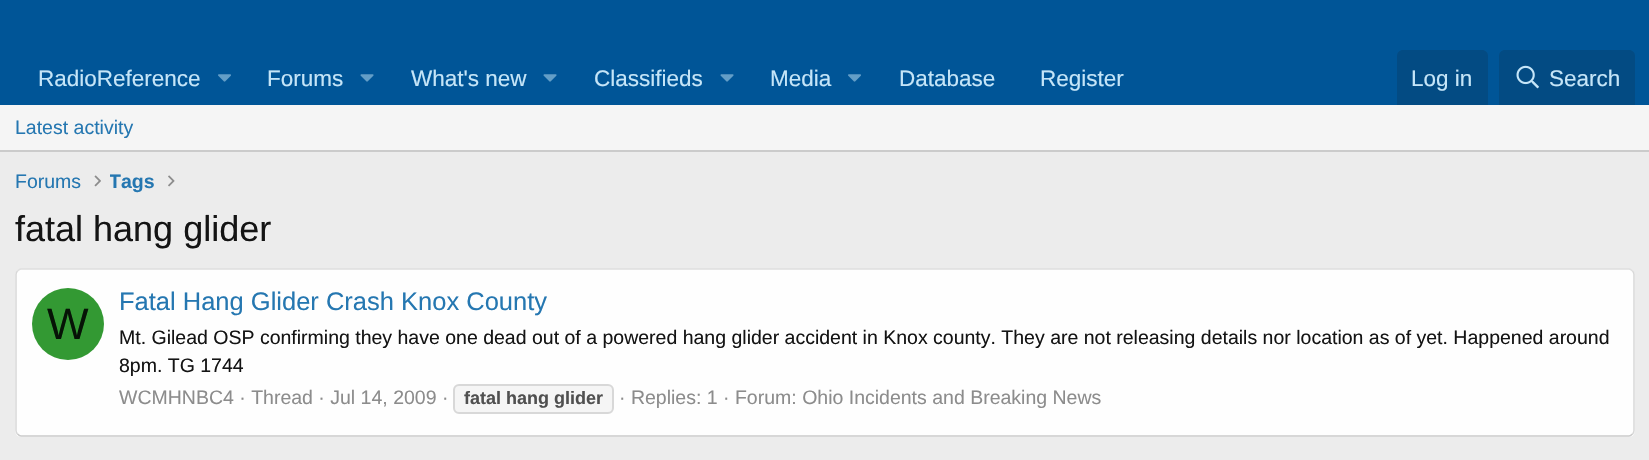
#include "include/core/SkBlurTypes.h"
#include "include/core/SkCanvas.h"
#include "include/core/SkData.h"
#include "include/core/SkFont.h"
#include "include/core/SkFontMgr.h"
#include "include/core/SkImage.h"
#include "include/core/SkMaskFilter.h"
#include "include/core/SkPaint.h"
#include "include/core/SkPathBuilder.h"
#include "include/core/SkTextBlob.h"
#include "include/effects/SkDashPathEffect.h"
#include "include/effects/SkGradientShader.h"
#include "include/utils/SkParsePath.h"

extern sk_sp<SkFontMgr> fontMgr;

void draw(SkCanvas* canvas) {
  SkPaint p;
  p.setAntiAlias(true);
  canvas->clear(SkColorSetRGB(236, 236, 236));
  p.setColor(SkColorSetRGB(0, 85, 151));
  canvas->drawRect(SkRect::MakeLTRB(0, 0, 1649, 105), p);
  canvas->drawImageRect(SkImages::DeferredFromEncodedData(SkData::MakeFromFileName("images/1.png")), SkRect::MakeLTRB(218, 74, 231, 82), SkSamplingOptions());
  canvas->drawImageRect(SkImages::DeferredFromEncodedData(SkData::MakeFromFileName("images/2.png")), SkRect::MakeLTRB(360, 74, 374, 82), SkSamplingOptions());
  canvas->drawImageRect(SkImages::DeferredFromEncodedData(SkData::MakeFromFileName("images/2.png")), SkRect::MakeLTRB(543, 74, 557, 82), SkSamplingOptions());
  canvas->drawImageRect(SkImages::DeferredFromEncodedData(SkData::MakeFromFileName("images/2.png")), SkRect::MakeLTRB(720, 74, 734, 82), SkSamplingOptions());
  canvas->drawImageRect(SkImages::DeferredFromEncodedData(SkData::MakeFromFileName("images/1.png")), SkRect::MakeLTRB(848, 74, 861, 82), SkSamplingOptions());
  p.setColor(SkColorSetRGB(3, 75, 131));
  canvas->drawPath(SkPathBuilder().moveTo(1403, 50).lineTo(1482, 50).cubicTo(1485.5f, 50, 1488, 52.5f, 1488, 56).lineTo(1488, 105).lineTo(1397, 105).lineTo(1397, 56).cubicTo(1397, 52.5f, 1399.5f, 50, 1403, 50).close().detach(), p);
  canvas->drawPath(SkPathBuilder().moveTo(1505, 50).lineTo(1629, 50).cubicTo(1632.5f, 50, 1635, 52.5f, 1635, 56).lineTo(1635, 105).lineTo(1499, 105).lineTo(1499, 56).cubicTo(1499, 52.5f, 1501.5f, 50, 1505, 50).close().detach(), p);
  canvas->drawImageRect(SkImages::DeferredFromEncodedData(SkData::MakeFromFileName("images/3.png")), SkRect::MakeLTRB(1516, 65, 1539, 89), SkSamplingOptions());
  p.setColor(SkColorSetRGB(245, 245, 245));
  canvas->drawRect(SkRect::MakeLTRB(0, 105, 1649, 150), p);
  p.setColor(SkColorSetRGB(203, 203, 203));
  canvas->drawRect(SkRect::MakeLTRB(0, 150, 1649, 152), p);
  canvas->drawImageRect(SkImages::DeferredFromEncodedData(SkData::MakeFromFileName("images/4.png")), SkRect::MakeLTRB(94, 175, 101, 187), SkSamplingOptions());
  canvas->drawImageRect(SkImages::DeferredFromEncodedData(SkData::MakeFromFileName("images/5.png")), SkRect::MakeLTRB(168, 175, 175, 187), SkSamplingOptions());
  p.setColor(SkColorSetRGB(254, 254, 254));
  canvas->drawRoundRect(SkRect::MakeLTRB(15, 269, 1635, 437), 6, 6, p);
  p.setStyle(SkPaint::kStroke_Style);
  p.setStrokeWidth(1.5f);
  p.setColor(SkColorSetRGB(223, 223, 223));
  canvas->drawPath(SkPathBuilder().moveTo(17.5f, 271).cubicTo(18.5f, 270, 19.5f, 269, 21, 269).lineTo(1629, 269).cubicTo(1630.5f, 269, 1631.5f, 270, 1632.5f, 271).detach(), p);
  p.setColor(SkColorSetRGB(216, 216, 216));
  canvas->drawPath(SkPathBuilder().moveTo(1632.5f, 271).cubicTo(1633.5f, 272, 1634, 273, 1634, 274.5f).lineTo(1634, 430.5f).cubicTo(1634, 432, 1633.5f, 433, 1632.5f, 434).detach(), p);
  p.setColor(SkColorSetRGB(203, 203, 203));
  canvas->drawPath(SkPathBuilder().moveTo(1632.5f, 434).cubicTo(1631.5f, 435, 1630.5f, 436, 1629, 436).lineTo(21, 436).cubicTo(19.5f, 436, 18.5f, 435, 17.5f, 434).detach(), p);
  p.setColor(SkColorSetRGB(216, 216, 216));
  canvas->drawPath(SkPathBuilder().moveTo(17.5f, 434).cubicTo(16.5f, 433, 16, 432, 16, 430.5f).lineTo(16, 274.5f).cubicTo(16, 273, 16.5f, 272, 17.5f, 271).detach(), p);
  p.setStyle(SkPaint::kFill_Style);
  p.setColor(SkColorSetRGB(51, 153, 51));
  canvas->drawCircle(68, 324, 36, p);
  p.setColor(SkColorSetRGB(245, 245, 245));
  canvas->drawRoundRect(SkRect::MakeLTRB(454, 385, 613, 413), 5, 5, p);
  p.setStyle(SkPaint::kStroke_Style);
  p.setStrokeWidth(2);
  p.setColor(SkColorSetRGB(216, 216, 216));
  canvas->drawRoundRect(SkRect::MakeLTRB(454, 385, 613, 413), 5, 5, p);
  SkFont font1(fontMgr->matchFamilyStyle("Liberation Sans", SkFontStyle::Normal()), 22.5f);
  font1.setSubpixel(true);
  p.setStyle(SkPaint::kFill_Style);
  p.setColor(SkColorSetRGB(197, 229, 248));
  canvas->drawString("RadioReference", 38, 86, font1, p);
  canvas->drawString("Forums", 267, 86, font1, p);
  canvas->drawString("What's new", 411, 86, font1, p);
  canvas->drawString("Classifieds", 594, 86, font1, p);
  canvas->drawString("Media", 770, 86, font1, p);
  canvas->drawString("Database", 899, 86, font1, p);
  canvas->drawString("Register", 1040, 86, font1, p);
  canvas->drawString("Log in", 1411, 86, font1, p);
  canvas->drawString("Search", 1549, 86, font1, p);
  SkFont font2(fontMgr->matchFamilyStyle("Liberation Sans", SkFontStyle::Normal()), 19.5f);
  font2.setSubpixel(true);
  p.setColor(SkColorSetRGB(37, 119, 177));
  canvas->drawString("Latest activity", 15, 134, font2, p);
  canvas->drawString("Forums", 15, 188, font2, p);
  canvas->save();
  canvas->clipRect(SkRect::MakeLTRB(110, 167, 155, 197));
  SkFont font3(fontMgr->matchFamilyStyle("Liberation Sans", SkFontStyle::Bold()), 19.5f);
  font3.setSubpixel(true);
  canvas->drawString("Tags", 109, 188, font3, p);
  canvas->restore();
  SkFont font4(fontMgr->matchFamilyStyle("Liberation Sans", SkFontStyle::Normal()), 36);
  font4.setSubpixel(true);
  p.setColor(SkColorSetRGB(20, 20, 20));
  canvas->drawString("fatal hang glider", 15, 241, font4, p);
  SkFont font5(fontMgr->matchFamilyStyle("Liberation Sans", SkFontStyle::Normal()), 44);
  font5.setSubpixel(true);
  p.setColor(SkColorSetRGB(6, 19, 6));
  canvas->drawString("W", 47, 339, font5, p);
  SkFont font6(fontMgr->matchFamilyStyle("Liberation Sans", SkFontStyle::Normal()), 25.5f);
  font6.setSubpixel(true);
  p.setColor(SkColorSetRGB(37, 119, 177));
  canvas->drawString("Fatal Hang Glider Crash Knox County", 119, 310, font6, p);
  p.setColor(SkColorSetRGB(20, 20, 20));
  canvas->drawString("Mt. Gilead OSP confirming they have one dead out of a powered hang glider accident in Knox county. They are not releasing details nor location as of yet. Happened around", 119, 344, font2, p);
  canvas->drawString("8pm. TG 1744", 119, 372, font2, p);
  p.setColor(SkColorSetRGB(140, 140, 140));
  canvas->drawString("WCMHNBC4 · Thread · Jul 14, 2009 ·", 119, 404, font2, p);
  SkFont font7(fontMgr->matchFamilyStyle("Liberation Sans", SkFontStyle::Bold()), 18);
  font7.setSubpixel(true);
  p.setColor(SkColorSetRGB(80, 80, 80));
  canvas->drawString("fatal hang glider", 464, 404, font7, p);
  p.setColor(SkColorSetRGB(140, 140, 140));
  canvas->drawString("· Replies: 1 · Forum: Ohio Incidents and Breaking News", 619, 404, font2, p);
}
